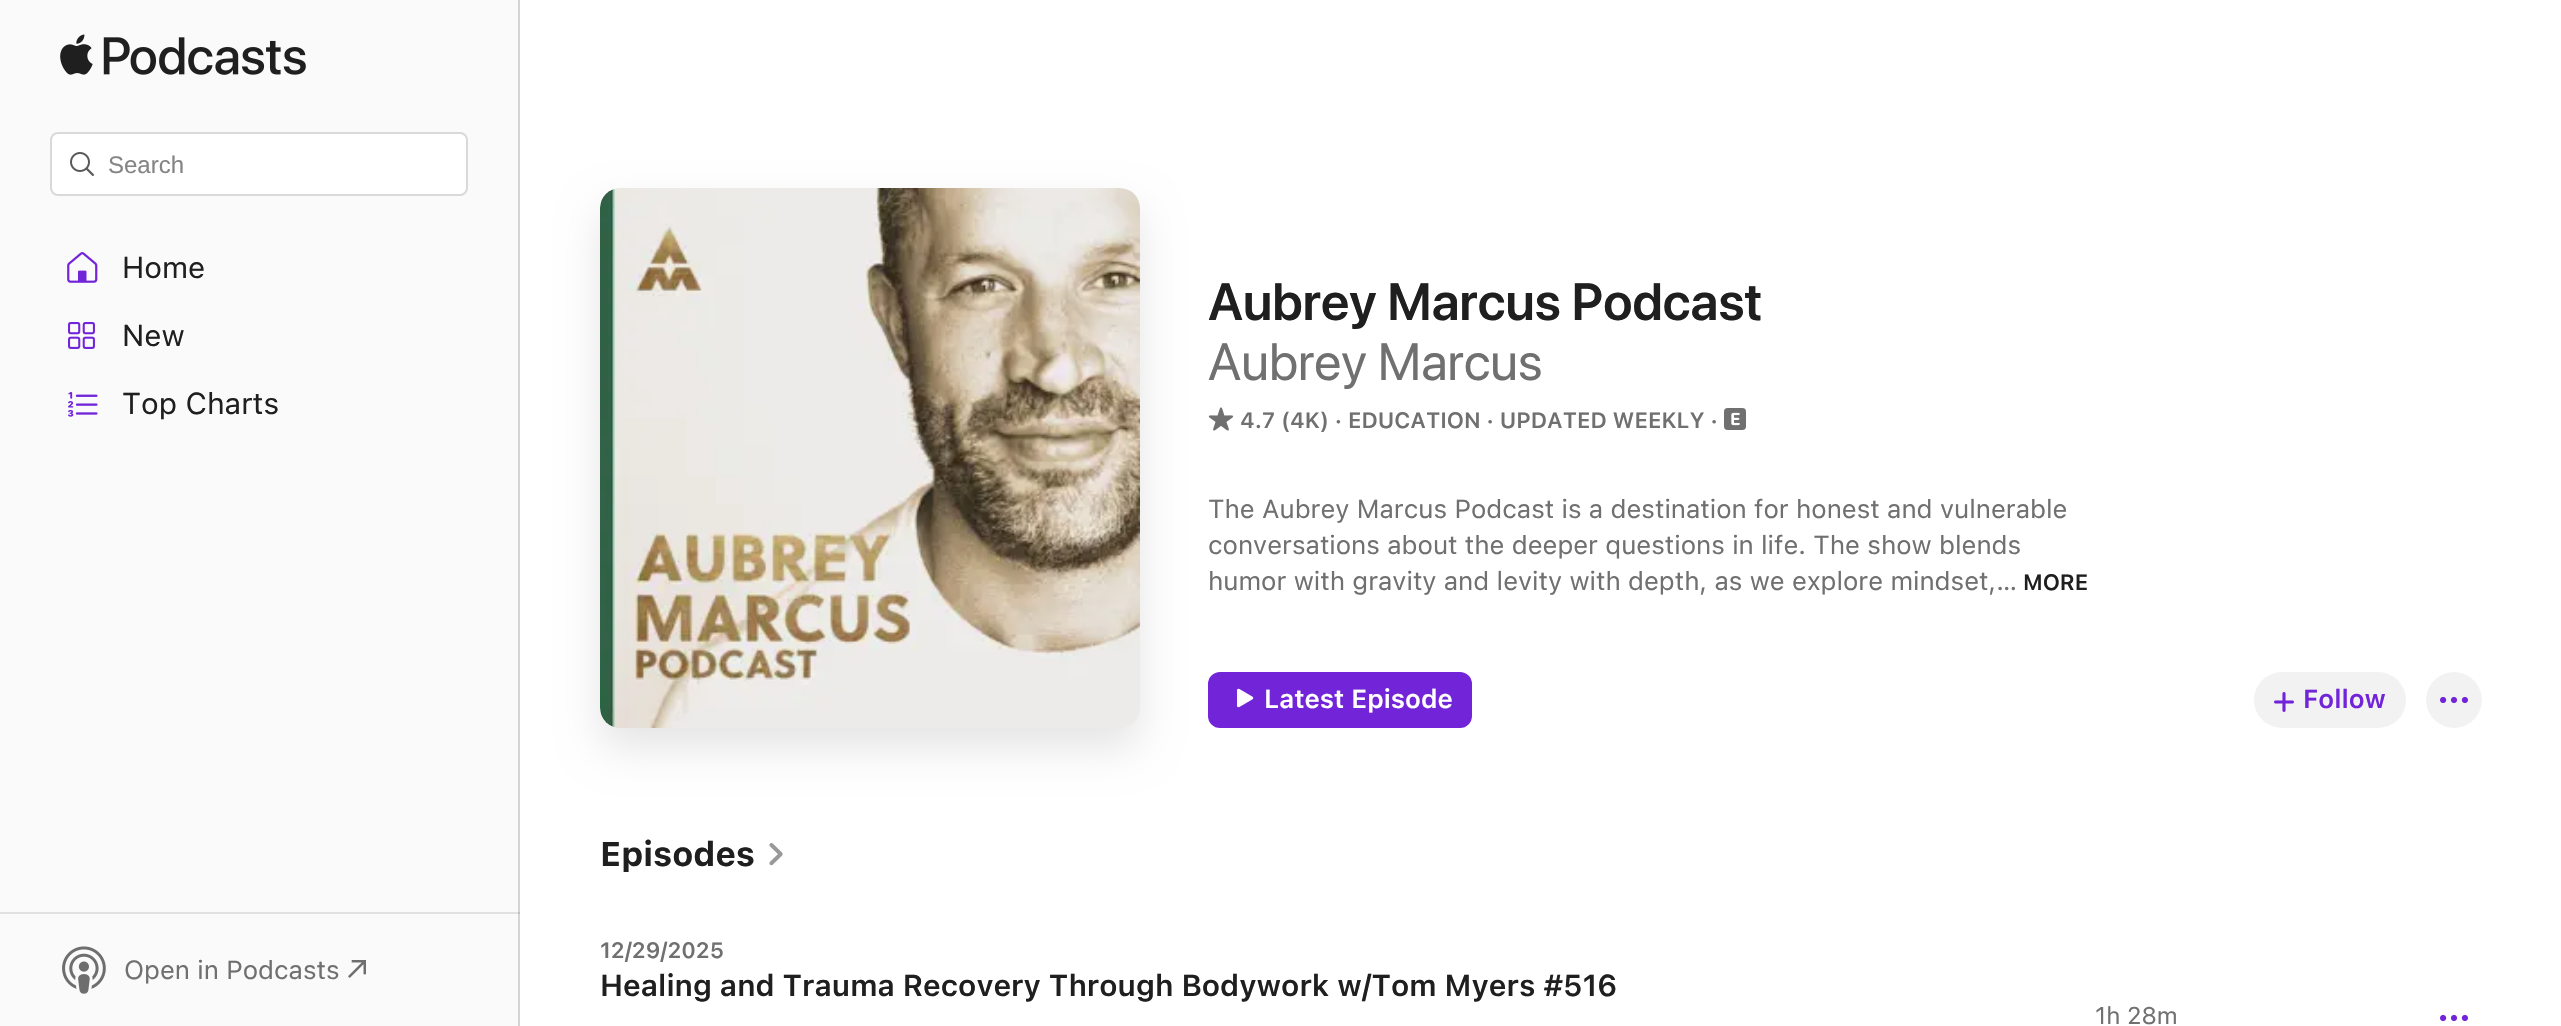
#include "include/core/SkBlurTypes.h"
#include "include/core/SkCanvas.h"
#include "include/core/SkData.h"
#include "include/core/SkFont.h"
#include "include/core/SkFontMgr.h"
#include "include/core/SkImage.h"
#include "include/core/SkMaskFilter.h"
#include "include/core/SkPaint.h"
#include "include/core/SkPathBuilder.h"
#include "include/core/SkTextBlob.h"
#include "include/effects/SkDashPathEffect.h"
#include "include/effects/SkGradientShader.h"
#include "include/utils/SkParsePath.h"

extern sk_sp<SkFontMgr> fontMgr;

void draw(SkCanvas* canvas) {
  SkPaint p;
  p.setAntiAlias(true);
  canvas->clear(SK_ColorWHITE);
  p.setColor(SkColorSetRGB(250, 250, 250));
  canvas->drawRect(SkRect::MakeLTRB(0, 0, 518, 1026), p);
  p.setColor(SkColorSetRGB(225, 225, 225));
  canvas->drawRect(SkRect::MakeLTRB(0, 912, 520, 914), p);
  p.setColor(SkColorSetRGB(213, 213, 213));
  canvas->drawRect(SkRect::MakeLTRB(518, 0, 520, 1026), p);
  p.setColor(SkColorSetRGB(192, 192, 192));
  canvas->drawRect(SkRect::MakeLTRB(518, 912, 520, 914), p);
  canvas->drawImageRect(SkImages::DeferredFromEncodedData(SkData::MakeFromFileName("images/1.png")), SkRect::MakeLTRB(60, 34, 306, 75), SkSamplingOptions());
  p.setColor(SK_ColorWHITE);
  canvas->drawRoundRect(SkRect::MakeLTRB(51, 133, 467, 195), 7, 7, p);
  p.setStyle(SkPaint::kStroke_Style);
  p.setStrokeWidth(2);
  p.setColor(SkColorSetRGB(217, 217, 217));
  canvas->drawRoundRect(SkRect::MakeLTRB(51, 133, 467, 195), 7, 7, p);
  canvas->drawImageRect(SkImages::DeferredFromEncodedData(SkData::MakeFromFileName("images/2.png")), SkRect::MakeLTRB(70, 152, 94, 176), SkSamplingOptions());
  canvas->drawImageRect(SkImages::DeferredFromEncodedData(SkData::MakeFromFileName("images/3.png")), SkRect::MakeLTRB(67, 252, 98, 283), SkSamplingOptions());
  canvas->drawImageRect(SkImages::DeferredFromEncodedData(SkData::MakeFromFileName("images/4.png")), SkRect::MakeLTRB(68, 322, 95, 349), SkSamplingOptions());
  canvas->drawImageRect(SkImages::DeferredFromEncodedData(SkData::MakeFromFileName("images/5.png")), SkRect::MakeLTRB(68, 392, 98, 417), SkSamplingOptions());
  canvas->drawImageRect(SkImages::DeferredFromEncodedData(SkData::MakeFromFileName("images/6.png")), SkRect::MakeLTRB(62, 946, 106, 994), SkSamplingOptions());
  canvas->drawImageRect(SkImages::DeferredFromEncodedData(SkData::MakeFromFileName("images/7.png")), SkRect::MakeLTRB(348, 960, 366, 978), SkSamplingOptions());
  p.setStyle(SkPaint::kFill_Style);
  p.setColor(SkColorSetARGB(26, 0, 0, 0));
  p.setMaskFilter(SkMaskFilter::MakeBlur(kNormal_SkBlurStyle, 20));
  canvas->drawRoundRect(SkRect::MakeLTRB(600, 208, 1140, 748), 20, 20, p);
  p.setMaskFilter(nullptr);
  canvas->drawImageRect(SkImages::DeferredFromEncodedData(SkData::MakeFromFileName("images/8.png")), SkRect::MakeLTRB(600, 188, 1140, 728), SkSamplingOptions());
  p.setColor(SkColorSetARGB(26, 128, 128, 128));
  canvas->drawPath(SkPathBuilder().moveTo(620, 188).lineTo(1120, 188).cubicTo(1131, 188, 1140, 197, 1140, 208).lineTo(1140, 708).cubicTo(1140, 719, 1131, 728, 1120, 728).lineTo(620, 728).cubicTo(609, 728, 600, 719, 600, 708).lineTo(600, 208).cubicTo(600, 197, 609, 188, 620, 188).close().detach(), p);
  canvas->drawImageRect(SkImages::DeferredFromEncodedData(SkData::MakeFromFileName("images/9.png")), SkRect::MakeLTRB(1208, 407, 1234, 431), SkSamplingOptions());
  canvas->drawImageRect(SkImages::DeferredFromEncodedData(SkData::MakeFromFileName("images/10.png")), SkRect::MakeLTRB(1724, 408, 1746, 430), SkSamplingOptions());
  p.setColor(SkColorSetRGB(114, 36, 216));
  canvas->drawRoundRect(SkRect::MakeLTRB(1208, 672, 1472, 728), 12, 12, p);
  canvas->drawImageRect(SkImages::DeferredFromEncodedData(SkData::MakeFromFileName("images/11.png")), SkRect::MakeLTRB(1237, 688, 1254, 708), SkSamplingOptions());
  p.setColor(SkColorSetRGB(242, 242, 242));
  canvas->drawRoundRect(SkRect::MakeLTRB(2254, 672, 2406, 728), 28, 28, p);
  canvas->drawImageRect(SkImages::DeferredFromEncodedData(SkData::MakeFromFileName("images/12.png")), SkRect::MakeLTRB(2274, 692, 2294, 712), SkSamplingOptions());
  canvas->drawImageRect(SkImages::DeferredFromEncodedData(SkData::MakeFromFileName("images/13.png")), SkRect::MakeLTRB(2426, 672, 2482, 728), SkSamplingOptions());
  canvas->drawImageRect(SkImages::DeferredFromEncodedData(SkData::MakeFromFileName("images/14.png")), SkRect::MakeLTRB(769, 843, 783, 866), SkSamplingOptions());
  canvas->drawImageRect(SkImages::DeferredFromEncodedData(SkData::MakeFromFileName("images/15.png")), SkRect::MakeLTRB(2440, 1014, 2468, 1022), SkSamplingOptions());
  SkFont font1(fontMgr->matchFamilyStyle("Liberation Sans", SkFontStyle::Normal()), 24);
  font1.setSubpixel(true);
  p.setColor(SkColorSetRGB(133, 133, 133));
  canvas->drawString("Search", 108, 173, font1, p);
  SkFont font2(fontMgr->matchFamilyStyle("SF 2", SkFontStyle::Normal()), 30);
  font2.setSubpixel(true);
  p.setColor(SkColorSetRGB(31, 31, 31));
  canvas->drawString("Home", 122, 278, font2, p);
  canvas->drawString("New", 122, 346, font2, p);
  canvas->drawString("Top Charts", 122, 414, font2, p);
  SkFont font3(fontMgr->matchFamilyStyle("SF 2", SkFontStyle::Normal()), 26);
  font3.setSubpixel(true);
  p.setColor(SkColorSetRGB(112, 112, 112));
  canvas->drawString("Open in Podcasts", 124, 979, font3, p);
  SkFont font4(fontMgr->matchFamilyStyle("SF 2", SkFontStyle(600, SkFontStyle::kNormal_Width, SkFontStyle::kUpright_Slant)), 52);
  font4.setSubpixel(true);
  p.setColor(SkColorSetRGB(31, 31, 31));
  canvas->drawString("Aubrey Marcus Podcast", 1208, 320, font4, p);
  SkFont font5(fontMgr->matchFamilyStyle("SF", SkFontStyle::Normal()), 52);
  font5.setSubpixel(true);
  p.setColor(SkColorSetRGB(112, 112, 112));
  canvas->drawString("Aubrey Marcus", 1208, 380, font5, p);
  SkFont font6(fontMgr->matchFamilyStyle("SF", SkFontStyle(600, SkFontStyle::kNormal_Width, SkFontStyle::kUpright_Slant)), 22);
  font6.setSubpixel(true);
  canvas->drawString("4.7 (4K) · EDUCATION · UPDATED WEEKLY ·", 1240, 428, font6, p);
  canvas->drawString("The Aubrey Marcus Podcast is a destination for honest and vulnerable", 1208, 518, font3, p);
  canvas->drawString("conversations about the deeper questions in life. The show blends", 1208, 554, font3, p);
  canvas->drawString("humor with gravity and levity with depth, as we explore mindset,…", 1208, 590, font3, p);
  p.setColor(SkColorSetRGB(31, 31, 31));
  canvas->drawString("MORE", 2023, 590, font6, p);
  SkFont font7(fontMgr->matchFamilyStyle("SF", SkFontStyle(600, SkFontStyle::kNormal_Width, SkFontStyle::kUpright_Slant)), 26);
  font7.setSubpixel(true);
  p.setColor(SK_ColorWHITE);
  canvas->drawString("Latest Episode", 1264, 708, font7, p);
  p.setColor(SkColorSetRGB(114, 36, 216));
  canvas->drawString("Follow", 2303, 708, font7, p);
  SkFont font8(fontMgr->matchFamilyStyle("SF", SkFontStyle::Bold()), 34);
  font8.setSubpixel(true);
  p.setColor(SkColorSetRGB(31, 31, 31));
  canvas->drawString("Episodes", 600, 866, font8, p);
  p.setColor(SkColorSetRGB(112, 112, 112));
  canvas->drawString("12/29/2025", 600, 958, font6, p);
  SkFont font9(fontMgr->matchFamilyStyle("SF", SkFontStyle(600, SkFontStyle::kNormal_Width, SkFontStyle::kUpright_Slant)), 30);
  font9.setSubpixel(true);
  p.setColor(SkColorSetRGB(31, 31, 31));
  canvas->drawString("Healing and Trauma Recovery Through Bodywork w/Tom Myers #516", 600, 996, font9, p);
  SkFont font10(fontMgr->matchFamilyStyle("SF 2", SkFontStyle::Normal()), 24);
  font10.setSubpixel(true);
  p.setColor(SkColorSetRGB(112, 112, 112));
  canvas->drawString("1h 28m", 2095, 1024, font10, p);
}
